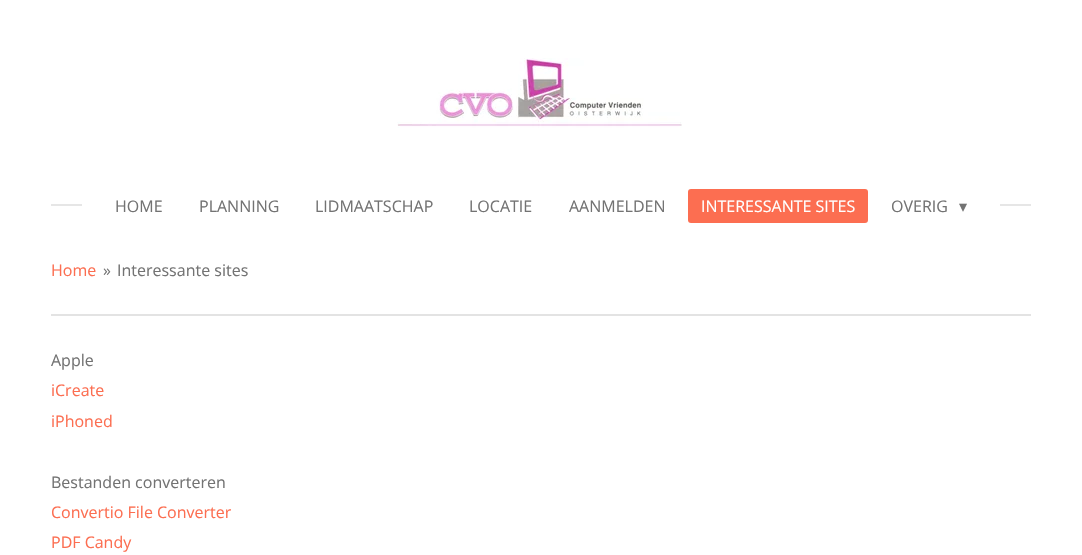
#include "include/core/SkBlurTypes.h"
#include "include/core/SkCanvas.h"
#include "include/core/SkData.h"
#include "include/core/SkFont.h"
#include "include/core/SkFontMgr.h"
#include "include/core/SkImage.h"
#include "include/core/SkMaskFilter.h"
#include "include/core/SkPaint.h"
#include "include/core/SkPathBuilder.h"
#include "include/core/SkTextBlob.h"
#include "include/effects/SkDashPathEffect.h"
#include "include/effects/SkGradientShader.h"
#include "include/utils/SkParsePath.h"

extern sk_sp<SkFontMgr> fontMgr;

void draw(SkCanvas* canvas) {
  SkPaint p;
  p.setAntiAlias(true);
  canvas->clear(SK_ColorWHITE);
  canvas->drawImageRect(SkImages::DeferredFromEncodedData(SkData::MakeFromFileName("images/1.png")), SkRect::MakeLTRB(397, 58, 682, 128), SkSamplingOptions());
  p.setColor(SkColorSetRGB(230, 230, 230));
  canvas->drawRect(SkRect::MakeLTRB(51, 204, 82, 206), p);
  p.setColor(SkColorSetRGB(252, 110, 81));
  canvas->drawRoundRect(SkRect::MakeLTRB(688, 189, 868, 223), 3, 3, p);
  p.setColor(SkColorSetRGB(230, 230, 230));
  canvas->drawRect(SkRect::MakeLTRB(1000, 204, 1031, 206), p);
  p.setColor(SkColorSetRGB(227, 227, 227));
  canvas->drawRect(SkRect::MakeLTRB(51, 314, 1031, 316), p);
  SkFont font1(fontMgr->matchFamilyStyle("Open Sans", SkFontStyle::Normal()), 16);
  font1.setSubpixel(true);
  p.setColor(SkColorSetRGB(115, 115, 115));
  canvas->drawString("HOME", 115, 212, font1, p);
  canvas->drawString("PLANNING", 199, 212, font1, p);
  canvas->drawString("LIDMAATSCHAP", 315, 212, font1, p);
  canvas->drawString("LOCATIE", 469, 212, font1, p);
  canvas->drawString("AANMELDEN", 569, 212, font1, p);
  p.setColor(SK_ColorWHITE);
  canvas->drawString("INTERESSANTE SITES", 701, 212, font1, p);
  p.setColor(SkColorSetRGB(115, 115, 115));
  canvas->drawString("OVERIG", 891, 212, font1, p);
  SkFont font2(fontMgr->matchFamilyStyle("DejaVu Sans", SkFontStyle::Normal()), 16);
  font2.setSubpixel(true);
  canvas->drawString("▾", 959, 212, font2, p);
  p.setColor(SkColorSetRGB(252, 110, 81));
  canvas->drawString("Home", 51, 276, font1, p);
  p.setColor(SkColorSetRGB(115, 115, 115));
  canvas->drawString("»", 103, 276, font1, p);
  canvas->drawString("Interessante sites", 117, 276, font1, p);
  canvas->drawString("Apple", 51, 366, font1, p);
  p.setColor(SkColorSetRGB(252, 110, 81));
  canvas->drawString("iCreate", 51, 396, font1, p);
  canvas->drawString("iPhoned", 51, 427, font1, p);
  p.setColor(SkColorSetRGB(115, 115, 115));
  canvas->drawString("Bestanden converteren", 51, 488, font1, p);
  p.setColor(SkColorSetRGB(252, 110, 81));
  canvas->drawString("Convertio File Converter", 51, 518, font1, p);
  canvas->drawString("PDF Candy", 51, 548, font1, p);
}
